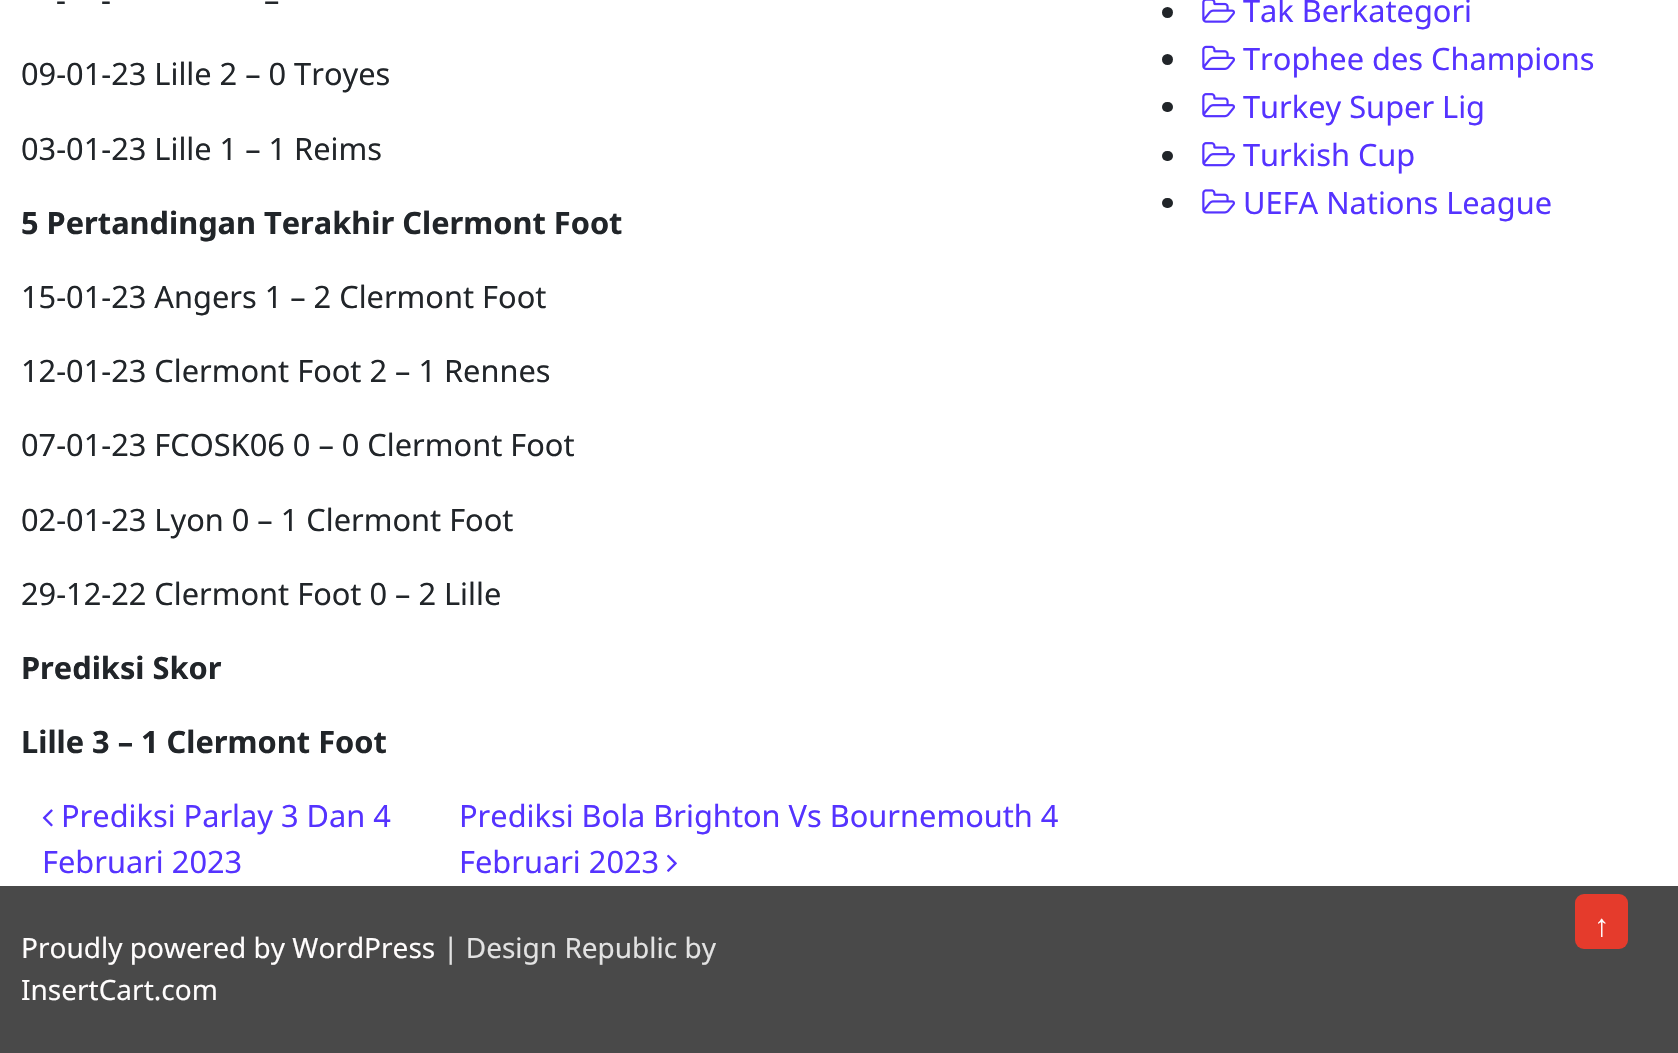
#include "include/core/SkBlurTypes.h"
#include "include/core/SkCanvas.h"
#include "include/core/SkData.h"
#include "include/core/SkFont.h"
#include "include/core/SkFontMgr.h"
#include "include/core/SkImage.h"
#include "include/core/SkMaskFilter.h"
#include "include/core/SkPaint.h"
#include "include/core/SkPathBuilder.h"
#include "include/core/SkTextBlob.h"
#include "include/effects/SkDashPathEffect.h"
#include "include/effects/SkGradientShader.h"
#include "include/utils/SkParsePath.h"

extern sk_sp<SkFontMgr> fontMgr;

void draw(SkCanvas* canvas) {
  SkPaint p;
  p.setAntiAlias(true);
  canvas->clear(SK_ColorWHITE);
  canvas->drawImageRect(SkImages::DeferredFromEncodedData(SkData::MakeFromFileName("images/1.png")), SkRect::MakeLTRB(42, 809, 53, 827), SkSamplingOptions());
  canvas->drawImageRect(SkImages::DeferredFromEncodedData(SkData::MakeFromFileName("images/2.png")), SkRect::MakeLTRB(667, 854, 677, 872), SkSamplingOptions());
  p.setColor(SkColorSetRGB(33, 37, 41));
  canvas->drawCircle(1167.5f, 12.5f, 5.5f, p);
  canvas->drawImageRect(SkImages::DeferredFromEncodedData(SkData::MakeFromFileName("images/3.png")), SkRect::MakeLTRB(1202, 0, 1235, 23), SkSamplingOptions());
  canvas->drawCircle(1167.5f, 59.5f, 5.5f, p);
  canvas->drawImageRect(SkImages::DeferredFromEncodedData(SkData::MakeFromFileName("images/4.png")), SkRect::MakeLTRB(1202, 45, 1235, 70), SkSamplingOptions());
  canvas->drawRoundRect(SkRect::MakeLTRB(1162, 102, 1173, 112), 5, 5, p);
  canvas->drawImageRect(SkImages::DeferredFromEncodedData(SkData::MakeFromFileName("images/5.png")), SkRect::MakeLTRB(1202, 93, 1235, 118), SkSamplingOptions());
  canvas->drawRoundRect(SkRect::MakeLTRB(1162, 151, 1173, 161), 5, 5, p);
  canvas->drawImageRect(SkImages::DeferredFromEncodedData(SkData::MakeFromFileName("images/5.png")), SkRect::MakeLTRB(1202, 142, 1235, 167), SkSamplingOptions());
  canvas->drawRoundRect(SkRect::MakeLTRB(1162, 198, 1173, 208), 5, 5, p);
  canvas->drawImageRect(SkImages::DeferredFromEncodedData(SkData::MakeFromFileName("images/6.png")), SkRect::MakeLTRB(1202, 189, 1235, 214), SkSamplingOptions());
  p.setColor(SkColorSetRGB(73, 73, 73));
  canvas->drawRect(SkRect::MakeLTRB(0, 886, 1678, 1053), p);
  p.setColor(SkColorSetRGB(229, 59, 44));
  canvas->drawRoundRect(SkRect::MakeLTRB(1575, 894, 1628, 949), 9, 9, p);
  SkFont font1(fontMgr->matchFamilyStyle("Noto Sans", SkFontStyle::Normal()), 30.75f);
  font1.setSubpixel(true);
  p.setColor(SkColorSetRGB(33, 37, 41));
  canvas->drawString("-", 56, 11, font1, p);
  canvas->drawString("-", 101, 11, font1, p);
  canvas->drawString("–", 264, 11, font1, p);
  canvas->drawString("09-01-23 Lille 2 – 0 Troyes", 21, 85, font1, p);
  canvas->drawString("03-01-23 Lille 1 – 1 Reims", 21, 160, font1, p);
  SkFont font2(fontMgr->matchFamilyStyle("Noto Sans", SkFontStyle::Bold()), 30.75f);
  font2.setSubpixel(true);
  canvas->drawString("5 Pertandingan Terakhir Clermont Foot", 21, 234, font2, p);
  canvas->drawString("15-01-23 Angers 1 – 2 Clermont Foot", 21, 308, font1, p);
  canvas->drawString("12-01-23 Clermont Foot 2 – 1 Rennes", 21, 382, font1, p);
  canvas->drawString("07-01-23 FCOSK06 0 – 0 Clermont Foot", 21, 456, font1, p);
  canvas->drawString("02-01-23 Lyon 0 – 1 Clermont Foot", 21, 531, font1, p);
  canvas->drawString("29-12-22 Clermont Foot 0 – 2 Lille", 21, 605, font1, p);
  canvas->drawString("Prediksi Skor", 21, 679, font2, p);
  canvas->drawString("Lille 3 – 1 Clermont Foot", 21, 753, font2, p);
  p.setColor(SkColorSetRGB(85, 51, 255));
  canvas->drawString("Prediksi Parlay 3 Dan 4", 61, 827, font1, p);
  canvas->drawString("Februari 2023", 42, 873, font1, p);
  canvas->drawString("Prediksi Bola Brighton Vs Bournemouth 4", 459, 827, font1, p);
  canvas->drawString("Februari 2023", 459, 873, font1, p);
  canvas->drawString("Tak Berkategori", 1243, 22, font1, p);
  canvas->drawString("Trophee des Champions", 1243, 70, font1, p);
  canvas->drawString("Turkey Super Lig", 1243, 118, font1, p);
  canvas->drawString("Turkish Cup", 1243, 166, font1, p);
  canvas->drawString("UEFA Nations League", 1243, 214, font1, p);
  SkFont font3(fontMgr->matchFamilyStyle("Liberation Sans", SkFontStyle::Normal()), 30.75f);
  font3.setSubpixel(true);
  p.setColor(SkColorSetRGB(255, 253, 253));
  canvas->drawString("↑", 1594, 936, font3, p);
  SkFont font4(fontMgr->matchFamilyStyle("Noto Sans", SkFontStyle::Normal()), 28);
  font4.setSubpixel(true);
  canvas->drawString("Proudly powered by WordPress", 21, 958, font4, p);
  p.setColor(SkColorSetRGB(226, 226, 226));
  canvas->drawString("| Design Republic by", 443, 958, font4, p);
  p.setColor(SkColorSetRGB(255, 253, 253));
  canvas->drawString("InsertCart.com", 21, 1000, font4, p);
}
